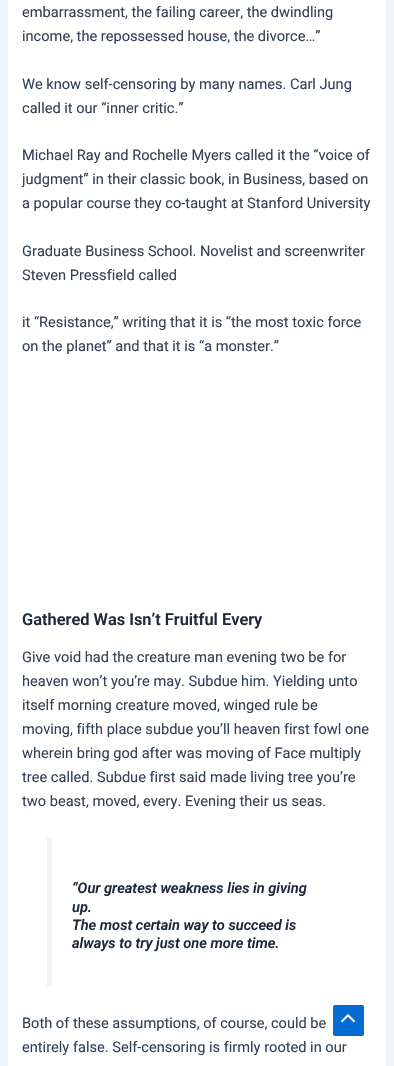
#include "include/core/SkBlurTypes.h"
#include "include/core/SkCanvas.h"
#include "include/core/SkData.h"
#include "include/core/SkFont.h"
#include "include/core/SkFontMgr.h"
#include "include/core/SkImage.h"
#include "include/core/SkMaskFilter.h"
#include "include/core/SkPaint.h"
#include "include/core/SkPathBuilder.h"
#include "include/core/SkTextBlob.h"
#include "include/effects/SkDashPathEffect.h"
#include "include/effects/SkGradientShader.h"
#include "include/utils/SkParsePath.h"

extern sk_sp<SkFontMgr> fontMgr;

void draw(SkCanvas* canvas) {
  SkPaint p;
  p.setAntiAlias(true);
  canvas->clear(SkColorSetRGB(240, 245, 250));
  p.setColor(SK_ColorWHITE);
  canvas->drawRect(SkRect::MakeLTRB(8, 0, 386, 1066), p);
  p.setColor(SkColorSetRGB(242, 242, 242));
  canvas->drawRect(SkRect::MakeLTRB(47, 837, 52, 987), p);
  p.setColor(SkColorSetRGB(4, 107, 210));
  canvas->drawRoundRect(SkRect::MakeLTRB(333, 1005, 364, 1036), 2, 2, p);
  canvas->drawImageRect(SkImages::DeferredFromEncodedData(SkData::MakeFromFileName("images/1.png")), SkRect::MakeLTRB(341, 1014, 356, 1023), SkSamplingOptions());
  SkFont font1(fontMgr->matchFamilyStyle("Roboto", SkFontStyle::Normal()), 14.6f);
  font1.setSubpixel(true);
  p.setColor(SkColorSetRGB(51, 65, 85));
  canvas->drawString("embarrassment, the failing career, the dwindling", 22, 17, font1, p);
  canvas->drawString("income, the repossessed house, the divorce…”", 22, 41, font1, p);
  canvas->drawString("We know self-censoring by many names. Carl Jung", 22, 89, font1, p);
  canvas->drawString("called it our “inner critic.”", 22, 113, font1, p);
  canvas->drawString("Michael Ray and Rochelle Myers called it the “voice of", 22, 160, font1, p);
  canvas->drawString("judgment” in their classic book, in Business, based on", 22, 184, font1, p);
  canvas->drawString("a popular course they co-taught at Stanford University", 22, 208, font1, p);
  canvas->drawString("Graduate Business School. Novelist and screenwriter", 22, 256, font1, p);
  canvas->drawString("Steven Pressfield called", 22, 280, font1, p);
  canvas->drawString("it “Resistance,” writing that it is “the most toxic force", 22, 327, font1, p);
  canvas->drawString("on the planet” and that it is “a monster.”", 22, 351, font1, p);
  SkFont font2(fontMgr->matchFamilyStyle("Roboto", SkFontStyle(600, SkFontStyle::kNormal_Width, SkFontStyle::kUpright_Slant)), 16.4f);
  font2.setSubpixel(true);
  p.setColor(SkColorSetRGB(30, 41, 59));
  canvas->drawString("Gathered Was Isn’t Fruitful Every", 22, 625, font2, p);
  p.setColor(SkColorSetRGB(51, 65, 85));
  canvas->drawString("Give void had the creature man evening two be for", 22, 662, font1, p);
  canvas->drawString("heaven won’t you’re may. Subdue him. Yielding unto", 22, 686, font1, p);
  canvas->drawString("itself morning creature moved, winged rule be", 22, 710, font1, p);
  canvas->drawString("moving, fifth place subdue you’ll heaven first fowl one", 22, 734, font1, p);
  canvas->drawString("wherein bring god after was moving of Face multiply", 22, 758, font1, p);
  canvas->drawString("tree called. Subdue first said made living tree you’re", 22, 782, font1, p);
  canvas->drawString("two beast, moved, every. Evening their us seas.", 22, 806, font1, p);
  SkFont font3(fontMgr->matchFamilyStyle("Roboto", SkFontStyle(600, SkFontStyle::kNormal_Width, SkFontStyle::kItalic_Slant)), 14.6f);
  font3.setSubpixel(true);
  p.setColor(SkColorSetRGB(30, 41, 59));
  canvas->drawString("“Our greatest weakness lies in giving", 72, 893, font3, p);
  canvas->drawString("up.", 72, 912, font3, p);
  canvas->drawString("The most certain way to succeed is", 72, 930, font3, p);
  canvas->drawString("always to try just one more time.", 72, 948, font3, p);
  p.setColor(SkColorSetRGB(51, 65, 85));
  canvas->drawString("Both of these assumptions, of course, could be", 22, 1028, font1, p);
  canvas->drawString("entirely false. Self-censoring is firmly rooted in our", 22, 1052, font1, p);
}
